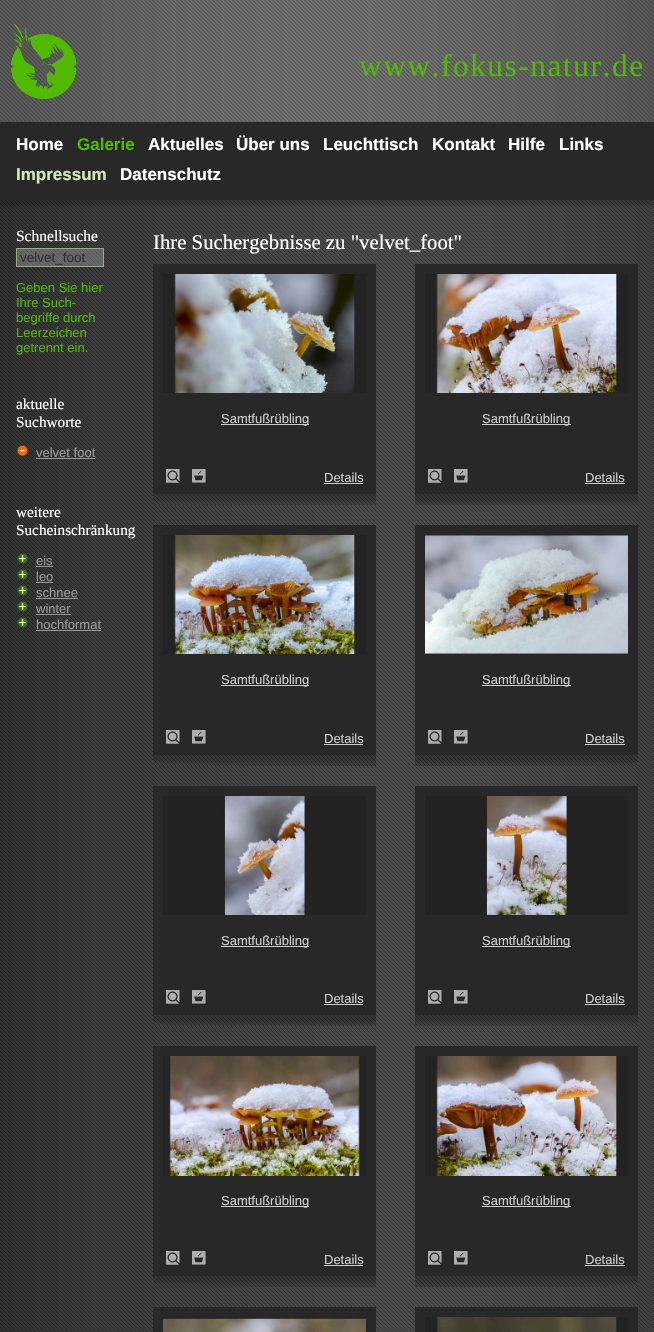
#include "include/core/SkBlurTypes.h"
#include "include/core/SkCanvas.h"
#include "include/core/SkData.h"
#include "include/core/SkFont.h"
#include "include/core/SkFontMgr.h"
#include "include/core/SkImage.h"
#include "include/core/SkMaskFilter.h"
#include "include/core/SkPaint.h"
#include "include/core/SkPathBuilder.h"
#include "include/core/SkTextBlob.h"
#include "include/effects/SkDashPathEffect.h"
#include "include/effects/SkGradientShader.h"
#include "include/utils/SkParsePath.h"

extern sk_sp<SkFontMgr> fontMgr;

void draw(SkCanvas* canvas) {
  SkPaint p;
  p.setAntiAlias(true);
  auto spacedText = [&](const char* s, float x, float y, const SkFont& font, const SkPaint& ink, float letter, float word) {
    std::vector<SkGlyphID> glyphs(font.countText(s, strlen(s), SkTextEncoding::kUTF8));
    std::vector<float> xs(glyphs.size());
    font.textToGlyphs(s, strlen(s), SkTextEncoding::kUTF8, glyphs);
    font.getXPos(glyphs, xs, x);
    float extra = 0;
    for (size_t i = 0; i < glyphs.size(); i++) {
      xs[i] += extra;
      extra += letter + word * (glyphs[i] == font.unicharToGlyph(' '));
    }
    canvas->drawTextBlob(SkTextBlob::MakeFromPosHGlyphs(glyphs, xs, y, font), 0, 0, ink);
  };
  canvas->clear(SK_ColorWHITE);
  canvas->drawImageRect(SkImages::DeferredFromEncodedData(SkData::MakeFromFileName("images/1.png")), SkRect::MakeLTRB(0, 0, 654, 122), SkSamplingOptions());
  canvas->drawImageRect(SkImages::DeferredFromEncodedData(SkData::MakeFromFileName("images/2.png")), SkRect::MakeLTRB(11, 23, 77, 99), SkSamplingOptions());
  p.setColor(SkColorSetRGB(40, 40, 40));
  canvas->drawRect(SkRect::MakeLTRB(0, 122, 654, 199), p);
  canvas->drawImageRect(SkImages::DeferredFromEncodedData(SkData::MakeFromFileName("images/3.png")), SkRect::MakeLTRB(0, 207, 654, 1332), SkSamplingOptions());
  canvas->drawImageRect(SkImages::DeferredFromEncodedData(SkData::MakeFromFileName("images/4.png")), SkRect::MakeLTRB(0, 199, 654, 207), SkSamplingOptions());
  canvas->drawImageRect(SkImages::DeferredFromEncodedData(SkData::MakeFromFileName("images/5.png")), SkRect::MakeLTRB(17, 249, 103, 266), SkSamplingOptions());
  p.setStyle(SkPaint::kStroke_Style);
  p.setStrokeWidth(1);
  p.setColor(SkColorSetRGB(149, 175, 119));
  canvas->drawRect(SkRect::MakeLTRB(16.5f, 248.5f, 103.5f, 266.5f), p);
  canvas->drawImageRect(SkImages::DeferredFromEncodedData(SkData::MakeFromFileName("images/6.png")), SkRect::MakeLTRB(17, 445, 28, 456), SkSamplingOptions());
  p.setStyle(SkPaint::kFill_Style);
  p.setColor(SkColorSetRGB(153, 153, 153));
  canvas->drawRect(SkRect::MakeLTRB(36, 458, 95, 459), p);
  canvas->drawImageRect(SkImages::DeferredFromEncodedData(SkData::MakeFromFileName("images/7.png")), SkRect::MakeLTRB(17, 553, 28, 564), SkSamplingOptions());
  canvas->drawRect(SkRect::MakeLTRB(36, 566, 53, 567), p);
  canvas->drawImageRect(SkImages::DeferredFromEncodedData(SkData::MakeFromFileName("images/7.png")), SkRect::MakeLTRB(17, 569, 28, 580), SkSamplingOptions());
  canvas->drawRect(SkRect::MakeLTRB(36, 582, 53, 583), p);
  canvas->drawImageRect(SkImages::DeferredFromEncodedData(SkData::MakeFromFileName("images/7.png")), SkRect::MakeLTRB(17, 585, 28, 596), SkSamplingOptions());
  canvas->drawRect(SkRect::MakeLTRB(36, 598, 78, 599), p);
  canvas->drawImageRect(SkImages::DeferredFromEncodedData(SkData::MakeFromFileName("images/7.png")), SkRect::MakeLTRB(17, 601, 28, 612), SkSamplingOptions());
  canvas->drawRect(SkRect::MakeLTRB(36, 614, 71, 615), p);
  canvas->drawImageRect(SkImages::DeferredFromEncodedData(SkData::MakeFromFileName("images/7.png")), SkRect::MakeLTRB(17, 617, 28, 628), SkSamplingOptions());
  canvas->drawRect(SkRect::MakeLTRB(36, 630, 101, 631), p);
  p.setColor(SkColorSetRGB(40, 40, 40));
  canvas->drawRect(SkRect::MakeLTRB(153, 264, 376, 494), p);
  canvas->drawImageRect(SkImages::DeferredFromEncodedData(SkData::MakeFromFileName("images/8.png")), SkRect::MakeLTRB(163, 274, 366, 393), SkSamplingOptions());
  p.setColor(SkColorSetRGB(204, 204, 204));
  canvas->drawRect(SkRect::MakeLTRB(221, 424, 309, 425), p);
  canvas->drawImageRect(SkImages::DeferredFromEncodedData(SkData::MakeFromFileName("images/9.png")), SkRect::MakeLTRB(166, 469, 180, 483), SkSamplingOptions());
  canvas->drawImageRect(SkImages::DeferredFromEncodedData(SkData::MakeFromFileName("images/10.png")), SkRect::MakeLTRB(192, 469, 206, 483), SkSamplingOptions());
  canvas->drawRect(SkRect::MakeLTRB(324, 483, 363, 484), p);
  canvas->drawImageRect(SkImages::DeferredFromEncodedData(SkData::MakeFromFileName("images/11.png")), SkRect::MakeLTRB(153, 494, 376, 505), SkSamplingOptions());
  p.setColor(SkColorSetRGB(40, 40, 40));
  canvas->drawRect(SkRect::MakeLTRB(415, 264, 638, 494), p);
  canvas->drawImageRect(SkImages::DeferredFromEncodedData(SkData::MakeFromFileName("images/12.png")), SkRect::MakeLTRB(425, 274, 628, 393), SkSamplingOptions());
  p.setColor(SkColorSetRGB(204, 204, 204));
  canvas->drawRect(SkRect::MakeLTRB(482, 424, 571, 425), p);
  canvas->drawImageRect(SkImages::DeferredFromEncodedData(SkData::MakeFromFileName("images/9.png")), SkRect::MakeLTRB(428, 469, 442, 483), SkSamplingOptions());
  canvas->drawImageRect(SkImages::DeferredFromEncodedData(SkData::MakeFromFileName("images/10.png")), SkRect::MakeLTRB(454, 469, 468, 483), SkSamplingOptions());
  canvas->drawRect(SkRect::MakeLTRB(585, 483, 625, 484), p);
  canvas->drawImageRect(SkImages::DeferredFromEncodedData(SkData::MakeFromFileName("images/11.png")), SkRect::MakeLTRB(415, 494, 638, 505), SkSamplingOptions());
  p.setColor(SkColorSetRGB(40, 40, 40));
  canvas->drawRect(SkRect::MakeLTRB(153, 525, 376, 755), p);
  canvas->drawImageRect(SkImages::DeferredFromEncodedData(SkData::MakeFromFileName("images/13.png")), SkRect::MakeLTRB(163, 535, 366, 654), SkSamplingOptions());
  p.setColor(SkColorSetRGB(204, 204, 204));
  canvas->drawRect(SkRect::MakeLTRB(221, 685, 309, 686), p);
  canvas->drawImageRect(SkImages::DeferredFromEncodedData(SkData::MakeFromFileName("images/9.png")), SkRect::MakeLTRB(166, 730, 180, 744), SkSamplingOptions());
  canvas->drawImageRect(SkImages::DeferredFromEncodedData(SkData::MakeFromFileName("images/10.png")), SkRect::MakeLTRB(192, 730, 206, 744), SkSamplingOptions());
  canvas->drawRect(SkRect::MakeLTRB(324, 744, 363, 745), p);
  canvas->drawImageRect(SkImages::DeferredFromEncodedData(SkData::MakeFromFileName("images/11.png")), SkRect::MakeLTRB(153, 755, 376, 766), SkSamplingOptions());
  p.setColor(SkColorSetRGB(40, 40, 40));
  canvas->drawRect(SkRect::MakeLTRB(415, 525, 638, 755), p);
  canvas->drawImageRect(SkImages::DeferredFromEncodedData(SkData::MakeFromFileName("images/14.png")), SkRect::MakeLTRB(425, 535, 628, 654), SkSamplingOptions());
  p.setColor(SkColorSetRGB(204, 204, 204));
  canvas->drawRect(SkRect::MakeLTRB(482, 685, 571, 686), p);
  canvas->drawImageRect(SkImages::DeferredFromEncodedData(SkData::MakeFromFileName("images/9.png")), SkRect::MakeLTRB(428, 730, 442, 744), SkSamplingOptions());
  canvas->drawImageRect(SkImages::DeferredFromEncodedData(SkData::MakeFromFileName("images/10.png")), SkRect::MakeLTRB(454, 730, 468, 744), SkSamplingOptions());
  canvas->drawRect(SkRect::MakeLTRB(585, 744, 625, 745), p);
  canvas->drawImageRect(SkImages::DeferredFromEncodedData(SkData::MakeFromFileName("images/11.png")), SkRect::MakeLTRB(415, 755, 638, 766), SkSamplingOptions());
  p.setColor(SkColorSetRGB(40, 40, 40));
  canvas->drawRect(SkRect::MakeLTRB(153, 786, 376, 1015), p);
  canvas->drawImageRect(SkImages::DeferredFromEncodedData(SkData::MakeFromFileName("images/15.png")), SkRect::MakeLTRB(163, 796, 366, 915), SkSamplingOptions());
  p.setColor(SkColorSetRGB(204, 204, 204));
  canvas->drawRect(SkRect::MakeLTRB(221, 946, 309, 947), p);
  canvas->drawImageRect(SkImages::DeferredFromEncodedData(SkData::MakeFromFileName("images/9.png")), SkRect::MakeLTRB(166, 990, 180, 1004), SkSamplingOptions());
  canvas->drawImageRect(SkImages::DeferredFromEncodedData(SkData::MakeFromFileName("images/10.png")), SkRect::MakeLTRB(192, 990, 206, 1004), SkSamplingOptions());
  canvas->drawRect(SkRect::MakeLTRB(324, 1004, 363, 1005), p);
  canvas->drawImageRect(SkImages::DeferredFromEncodedData(SkData::MakeFromFileName("images/11.png")), SkRect::MakeLTRB(153, 1015, 376, 1026), SkSamplingOptions());
  p.setColor(SkColorSetRGB(40, 40, 40));
  canvas->drawRect(SkRect::MakeLTRB(415, 786, 638, 1015), p);
  canvas->drawImageRect(SkImages::DeferredFromEncodedData(SkData::MakeFromFileName("images/16.png")), SkRect::MakeLTRB(425, 796, 628, 915), SkSamplingOptions());
  p.setColor(SkColorSetRGB(204, 204, 204));
  canvas->drawRect(SkRect::MakeLTRB(482, 946, 571, 947), p);
  canvas->drawImageRect(SkImages::DeferredFromEncodedData(SkData::MakeFromFileName("images/9.png")), SkRect::MakeLTRB(428, 990, 442, 1004), SkSamplingOptions());
  canvas->drawImageRect(SkImages::DeferredFromEncodedData(SkData::MakeFromFileName("images/10.png")), SkRect::MakeLTRB(454, 990, 468, 1004), SkSamplingOptions());
  canvas->drawRect(SkRect::MakeLTRB(585, 1004, 625, 1005), p);
  canvas->drawImageRect(SkImages::DeferredFromEncodedData(SkData::MakeFromFileName("images/11.png")), SkRect::MakeLTRB(415, 1015, 638, 1026), SkSamplingOptions());
  p.setColor(SkColorSetRGB(40, 40, 40));
  canvas->drawRect(SkRect::MakeLTRB(153, 1046, 376, 1276), p);
  canvas->drawImageRect(SkImages::DeferredFromEncodedData(SkData::MakeFromFileName("images/17.png")), SkRect::MakeLTRB(163, 1056, 366, 1176), SkSamplingOptions());
  p.setColor(SkColorSetRGB(204, 204, 204));
  canvas->drawRect(SkRect::MakeLTRB(221, 1206, 309, 1207), p);
  canvas->drawImageRect(SkImages::DeferredFromEncodedData(SkData::MakeFromFileName("images/9.png")), SkRect::MakeLTRB(166, 1251, 180, 1265), SkSamplingOptions());
  canvas->drawImageRect(SkImages::DeferredFromEncodedData(SkData::MakeFromFileName("images/10.png")), SkRect::MakeLTRB(192, 1251, 206, 1265), SkSamplingOptions());
  canvas->drawRect(SkRect::MakeLTRB(324, 1265, 363, 1266), p);
  canvas->drawImageRect(SkImages::DeferredFromEncodedData(SkData::MakeFromFileName("images/11.png")), SkRect::MakeLTRB(153, 1276, 376, 1287), SkSamplingOptions());
  p.setColor(SkColorSetRGB(40, 40, 40));
  canvas->drawRect(SkRect::MakeLTRB(415, 1046, 638, 1276), p);
  canvas->drawImageRect(SkImages::DeferredFromEncodedData(SkData::MakeFromFileName("images/18.png")), SkRect::MakeLTRB(425, 1056, 628, 1176), SkSamplingOptions());
  p.setColor(SkColorSetRGB(204, 204, 204));
  canvas->drawRect(SkRect::MakeLTRB(482, 1206, 571, 1207), p);
  canvas->drawImageRect(SkImages::DeferredFromEncodedData(SkData::MakeFromFileName("images/9.png")), SkRect::MakeLTRB(428, 1251, 442, 1265), SkSamplingOptions());
  canvas->drawImageRect(SkImages::DeferredFromEncodedData(SkData::MakeFromFileName("images/10.png")), SkRect::MakeLTRB(454, 1251, 468, 1265), SkSamplingOptions());
  canvas->drawRect(SkRect::MakeLTRB(585, 1265, 625, 1266), p);
  canvas->drawImageRect(SkImages::DeferredFromEncodedData(SkData::MakeFromFileName("images/11.png")), SkRect::MakeLTRB(415, 1276, 638, 1287), SkSamplingOptions());
  p.setColor(SkColorSetRGB(40, 40, 40));
  canvas->drawRect(SkRect::MakeLTRB(153, 1307, 376, 1332), p);
  canvas->drawImageRect(SkImages::DeferredFromEncodedData(SkData::MakeFromFileName("images/19.png")), SkRect::MakeLTRB(163, 1317, 366, 1332), SkSamplingOptions());
  canvas->drawRect(SkRect::MakeLTRB(415, 1307, 638, 1332), p);
  canvas->drawImageRect(SkImages::DeferredFromEncodedData(SkData::MakeFromFileName("images/20.png")), SkRect::MakeLTRB(425, 1317, 628, 1332), SkSamplingOptions());
  SkFont font1(fontMgr->matchFamilyStyle("Liberation Serif", SkFontStyle::Normal()), 31.25f);
  font1.setSubpixel(true);
  p.setColor(SkColorSetRGB(79, 186, 0));
  spacedText("www.fokus-natur.de", 359, 76, font1, p, 1.6f, 0);
  SkFont font2(fontMgr->matchFamilyStyle("Liberation Sans", SkFontStyle::Bold()), 17);
  font2.setSubpixel(true);
  p.setColor(SK_ColorWHITE);
  canvas->drawString("Home", 16, 150, font2, p);
  p.setColor(SkColorSetRGB(79, 186, 0));
  canvas->drawString("Galerie", 77, 150, font2, p);
  p.setColor(SK_ColorWHITE);
  canvas->drawString("Aktuelles", 148, 150, font2, p);
  canvas->drawString("Über uns", 236, 150, font2, p);
  canvas->drawString("Leuchttisch", 323, 150, font2, p);
  canvas->drawString("Kontakt", 432, 150, font2, p);
  canvas->drawString("Hilfe", 508, 150, font2, p);
  canvas->drawString("Links", 559, 150, font2, p);
  p.setColor(SkColorSetRGB(209, 234, 185));
  canvas->drawString("Impressum", 16, 180, font2, p);
  p.setColor(SK_ColorWHITE);
  canvas->drawString("Datenschutz", 120, 180, font2, p);
  SkFont font3(fontMgr->matchFamilyStyle("Liberation Serif", SkFontStyle::Normal()), 15.5f);
  font3.setSubpixel(true);
  canvas->drawString("Schnellsuche", 16, 241, font3, p);
  SkFont font4(fontMgr->matchFamilyStyle("Liberation Sans", SkFontStyle::Normal()), 13.5f);
  font4.setSubpixel(true);
  p.setColor(SkColorSetRGB(51, 51, 51));
  canvas->drawString("velvet_foot", 20, 262, font4, p);
  SkFont font5(fontMgr->matchFamilyStyle("Liberation Sans", SkFontStyle::Normal()), 13);
  font5.setSubpixel(true);
  p.setColor(SkColorSetRGB(79, 186, 0));
  canvas->drawString("Geben Sie hier", 16, 292, font5, p);
  canvas->drawString("Ihre Such-", 16, 307, font5, p);
  canvas->drawString("begriffe durch", 16, 322, font5, p);
  canvas->drawString("Leerzeichen", 16, 337, font5, p);
  canvas->drawString("getrennt ein.", 16, 352, font5, p);
  SkFont font6(fontMgr->matchFamilyStyle("Liberation Serif", SkFontStyle::Normal()), 15.25f);
  font6.setSubpixel(true);
  p.setColor(SK_ColorWHITE);
  canvas->drawString("aktuelle", 16, 409, font6, p);
  canvas->drawString("Suchworte", 16, 427, font6, p);
  p.setColor(SkColorSetRGB(153, 153, 153));
  canvas->drawString("velvet foot", 36, 457, font5, p);
  p.setColor(SK_ColorWHITE);
  canvas->drawString("weitere", 16, 517, font6, p);
  canvas->drawString("Sucheinschränkung", 16, 535, font6, p);
  p.setColor(SkColorSetRGB(153, 153, 153));
  canvas->drawString("eis", 36, 565, font5, p);
  canvas->drawString("leo", 36, 581, font5, p);
  canvas->drawString("schnee", 36, 597, font5, p);
  canvas->drawString("winter", 36, 613, font5, p);
  canvas->drawString("hochformat", 36, 629, font5, p);
  SkFont font7(fontMgr->matchFamilyStyle("Liberation Serif", SkFontStyle::Normal()), 20.75f);
  font7.setSubpixel(true);
  p.setColor(SK_ColorWHITE);
  canvas->drawString("Ihre Suchergebnisse zu \"velvet_foot\"", 153, 249, font7, p);
  p.setColor(SkColorSetRGB(204, 204, 204));
  canvas->drawString("Samtfußrübling", 221, 423, font5, p);
  canvas->drawString("Details", 324, 482, font5, p);
  canvas->drawString("Samtfußrübling", 482, 423, font5, p);
  canvas->drawString("Details", 585, 482, font5, p);
  canvas->drawString("Samtfußrübling", 221, 684, font5, p);
  canvas->drawString("Details", 324, 743, font5, p);
  canvas->drawString("Samtfußrübling", 482, 684, font5, p);
  canvas->drawString("Details", 585, 743, font5, p);
  canvas->drawString("Samtfußrübling", 221, 945, font5, p);
  canvas->drawString("Details", 324, 1003, font5, p);
  canvas->drawString("Samtfußrübling", 482, 945, font5, p);
  canvas->drawString("Details", 585, 1003, font5, p);
  canvas->drawString("Samtfußrübling", 221, 1205, font5, p);
  canvas->drawString("Details", 324, 1264, font5, p);
  canvas->drawString("Samtfußrübling", 482, 1205, font5, p);
  canvas->drawString("Details", 585, 1264, font5, p);
}
